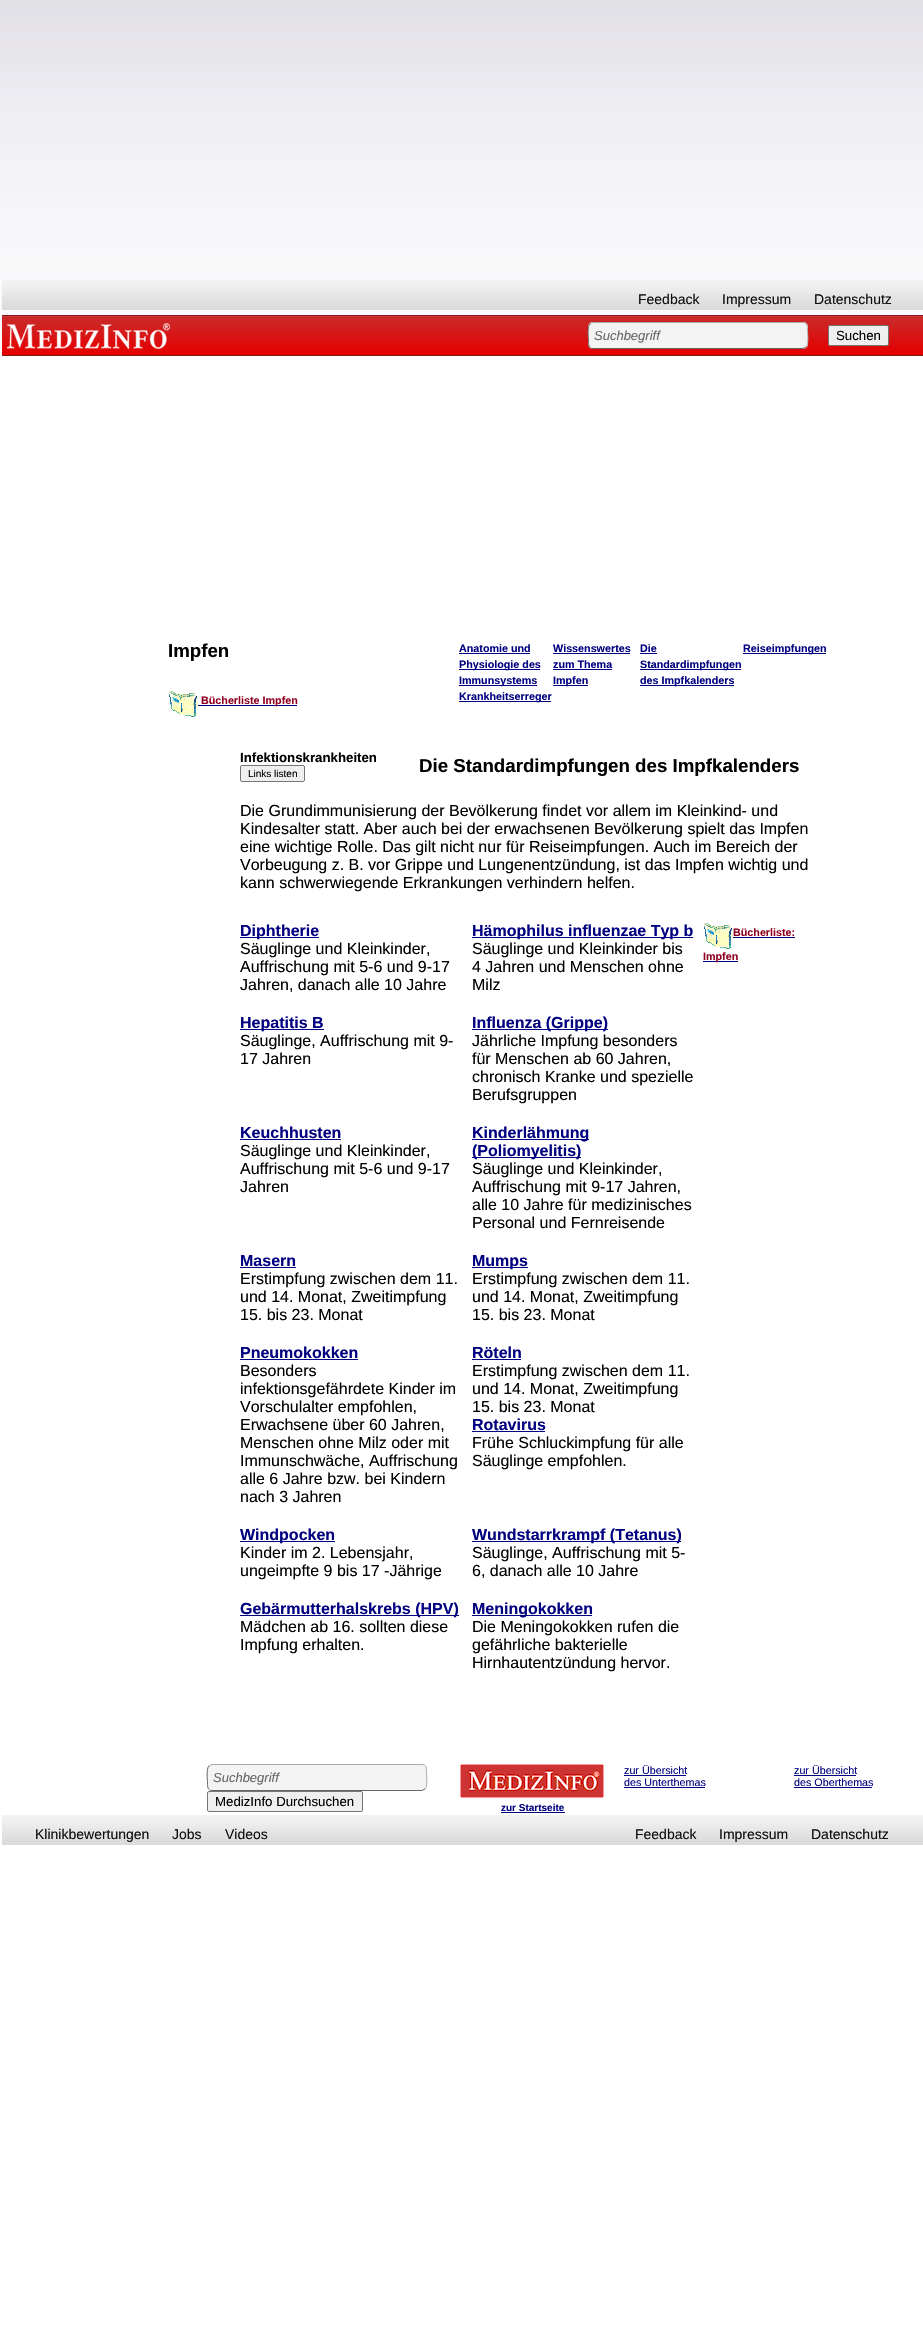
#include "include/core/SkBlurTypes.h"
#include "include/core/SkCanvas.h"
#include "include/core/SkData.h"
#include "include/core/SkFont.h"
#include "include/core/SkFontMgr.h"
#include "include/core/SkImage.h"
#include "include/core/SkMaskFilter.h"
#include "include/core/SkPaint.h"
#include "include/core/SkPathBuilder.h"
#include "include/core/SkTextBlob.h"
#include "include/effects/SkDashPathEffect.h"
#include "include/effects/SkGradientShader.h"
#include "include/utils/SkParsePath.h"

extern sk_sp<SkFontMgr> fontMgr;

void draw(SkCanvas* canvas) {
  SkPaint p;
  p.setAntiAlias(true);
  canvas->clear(SK_ColorWHITE);
  canvas->drawImageRect(SkImages::DeferredFromEncodedData(SkData::MakeFromFileName("images/1.png")), SkRect::MakeLTRB(0, 0, 923, 322), SkSamplingOptions());
  canvas->drawImageRect(SkImages::DeferredFromEncodedData(SkData::MakeFromFileName("images/2.png")), SkRect::MakeLTRB(2, 280, 923, 310), SkSamplingOptions());
  canvas->drawImageRect(SkImages::DeferredFromEncodedData(SkData::MakeFromFileName("images/3.png")), SkRect::MakeLTRB(2, 315, 923, 356), SkSamplingOptions());
  canvas->drawImageRect(SkImages::DeferredFromEncodedData(SkData::MakeFromFileName("images/4.png")), SkRect::MakeLTRB(7, 323, 170, 349), SkSamplingOptions());
  p.setColor(SkColorSetRGB(243, 243, 243));
  canvas->drawRoundRect(SkRect::MakeLTRB(588, 322, 808, 349), 5, 5, p);
  p.setStyle(SkPaint::kStroke_Style);
  p.setStrokeWidth(1);
  p.setColor(SkColorSetRGB(170, 170, 170));
  canvas->drawPath(SkPathBuilder().moveTo(590, 324).lineTo(593, 322.5f).lineTo(803, 322.5f).cubicTo(807.5f, 322.5f, 807.5f, 326.5f, 807.5f, 330).cubicTo(807.5f, 333.5f, 809, 344.5f, 806, 347).detach(), p);
  p.setColor(SkColorSetRGB(102, 102, 102));
  canvas->drawPath(SkPathBuilder().moveTo(806, 347).lineTo(803, 348.5f).lineTo(593, 348.5f).cubicTo(588.5f, 348.5f, 588.5f, 344.5f, 588.5f, 341).cubicTo(588.5f, 337.5f, 587, 326.5f, 590, 324).detach(), p);
  p.setStyle(SkPaint::kFill_Style);
  p.setColor(SkColorSetRGB(239, 239, 239));
  canvas->drawRoundRect(SkRect::MakeLTRB(828.5f, 325.5f, 888.5f, 345.5f), 1.5f, 1.5f, p);
  p.setStyle(SkPaint::kStroke_Style);
  p.setColor(SkColorSetRGB(118, 118, 118));
  canvas->drawRoundRect(SkRect::MakeLTRB(828.5f, 325.5f, 888.5f, 345.5f), 1.5f, 1.5f, p);
  canvas->drawImageRect(SkImages::DeferredFromEncodedData(SkData::MakeFromFileName("images/5.png")), SkRect::MakeLTRB(169, 691, 198, 717), SkSamplingOptions());
  p.setStyle(SkPaint::kFill_Style);
  p.setColor(SkColorSetRGB(0, 0, 128));
  canvas->drawRect(SkRect::MakeLTRB(198, 705, 297, 706), p);
  canvas->drawRect(SkRect::MakeLTRB(459, 653, 530, 654), p);
  canvas->drawRect(SkRect::MakeLTRB(459, 669, 540, 670), p);
  canvas->drawRect(SkRect::MakeLTRB(459, 685, 537, 686), p);
  canvas->drawRect(SkRect::MakeLTRB(459, 701, 551, 702), p);
  canvas->drawRect(SkRect::MakeLTRB(553, 653, 630, 654), p);
  canvas->drawRect(SkRect::MakeLTRB(553, 669, 612, 670), p);
  canvas->drawRect(SkRect::MakeLTRB(553, 685, 588, 686), p);
  canvas->drawRect(SkRect::MakeLTRB(640, 653, 657, 654), p);
  canvas->drawRect(SkRect::MakeLTRB(640, 669, 741, 670), p);
  canvas->drawRect(SkRect::MakeLTRB(640, 685, 734, 686), p);
  canvas->drawRect(SkRect::MakeLTRB(743, 653, 826, 654), p);
  p.setColor(SkColorSetRGB(239, 239, 239));
  canvas->drawRoundRect(SkRect::MakeLTRB(240.5f, 765.5f, 304.5f, 781.5f), 1.5f, 1.5f, p);
  p.setStyle(SkPaint::kStroke_Style);
  p.setColor(SkColorSetRGB(118, 118, 118));
  canvas->drawRoundRect(SkRect::MakeLTRB(240.5f, 765.5f, 304.5f, 781.5f), 1.5f, 1.5f, p);
  p.setStyle(SkPaint::kFill_Style);
  p.setColor(SkColorSetRGB(0, 0, 128));
  canvas->drawRect(SkRect::MakeLTRB(240, 937, 319, 938), p);
  canvas->drawRect(SkRect::MakeLTRB(472, 937, 693, 938), p);
  canvas->drawImageRect(SkImages::DeferredFromEncodedData(SkData::MakeFromFileName("images/5.png")), SkRect::MakeLTRB(704, 923, 733, 949), SkSamplingOptions());
  canvas->drawRect(SkRect::MakeLTRB(733, 937, 795, 938), p);
  canvas->drawRect(SkRect::MakeLTRB(703, 961, 738, 962), p);
  canvas->drawRect(SkRect::MakeLTRB(240, 1029, 324, 1030), p);
  canvas->drawRect(SkRect::MakeLTRB(472, 1029, 608, 1030), p);
  canvas->drawRect(SkRect::MakeLTRB(240, 1139, 341, 1140), p);
  canvas->drawRect(SkRect::MakeLTRB(472, 1139, 589, 1140), p);
  canvas->drawRect(SkRect::MakeLTRB(472, 1157, 581, 1158), p);
  canvas->drawRect(SkRect::MakeLTRB(240, 1267, 296, 1268), p);
  canvas->drawRect(SkRect::MakeLTRB(472, 1267, 528, 1268), p);
  canvas->drawRect(SkRect::MakeLTRB(240, 1359, 358, 1360), p);
  canvas->drawRect(SkRect::MakeLTRB(472, 1359, 521, 1360), p);
  canvas->drawRect(SkRect::MakeLTRB(472, 1431, 545, 1432), p);
  canvas->drawRect(SkRect::MakeLTRB(240, 1541, 335, 1542), p);
  canvas->drawRect(SkRect::MakeLTRB(472, 1541, 681, 1542), p);
  canvas->drawRect(SkRect::MakeLTRB(240, 1615, 459, 1616), p);
  canvas->drawRect(SkRect::MakeLTRB(472, 1615, 592, 1616), p);
  p.setColor(SkColorSetRGB(243, 243, 243));
  canvas->drawRoundRect(SkRect::MakeLTRB(207, 1764, 427, 1791), 5, 5, p);
  p.setStyle(SkPaint::kStroke_Style);
  p.setColor(SkColorSetRGB(170, 170, 170));
  canvas->drawPath(SkPathBuilder().moveTo(209, 1766).lineTo(212, 1764.5f).lineTo(422, 1764.5f).cubicTo(426.5f, 1764.5f, 426.5f, 1768.5f, 426.5f, 1772).cubicTo(426.5f, 1775.5f, 428, 1786.5f, 425, 1789).detach(), p);
  p.setColor(SkColorSetRGB(102, 102, 102));
  canvas->drawPath(SkPathBuilder().moveTo(425, 1789).lineTo(422, 1790.5f).lineTo(212, 1790.5f).cubicTo(207.5f, 1790.5f, 207.5f, 1786.5f, 207.5f, 1783).cubicTo(207.5f, 1779.5f, 206, 1768.5f, 209, 1766).detach(), p);
  p.setStyle(SkPaint::kFill_Style);
  p.setColor(SkColorSetRGB(239, 239, 239));
  canvas->drawRoundRect(SkRect::MakeLTRB(207.5f, 1791.5f, 362.5f, 1811.5f), 1.5f, 1.5f, p);
  p.setStyle(SkPaint::kStroke_Style);
  p.setColor(SkColorSetRGB(118, 118, 118));
  canvas->drawRoundRect(SkRect::MakeLTRB(207.5f, 1791.5f, 362.5f, 1811.5f), 1.5f, 1.5f, p);
  canvas->drawImageRect(SkImages::DeferredFromEncodedData(SkData::MakeFromFileName("images/6.png")), SkRect::MakeLTRB(460, 1764, 604, 1798), SkSamplingOptions());
  p.setStyle(SkPaint::kFill_Style);
  p.setColor(SkColorSetRGB(0, 0, 128));
  canvas->drawRect(SkRect::MakeLTRB(501, 1812, 565, 1813), p);
  canvas->drawRect(SkRect::MakeLTRB(624, 1775, 686, 1776), p);
  canvas->drawRect(SkRect::MakeLTRB(624, 1787, 705, 1788), p);
  canvas->drawRect(SkRect::MakeLTRB(794, 1775, 856, 1776), p);
  canvas->drawRect(SkRect::MakeLTRB(794, 1787, 872, 1788), p);
  canvas->drawImageRect(SkImages::DeferredFromEncodedData(SkData::MakeFromFileName("images/2.png")), SkRect::MakeLTRB(2, 1815, 923, 1845), SkSamplingOptions());
  SkFont font1(fontMgr->matchFamilyStyle("Liberation Sans", SkFontStyle::Normal()), 14);
  font1.setSubpixel(true);
  p.setColor(SkColorSetRGB(14, 14, 14));
  canvas->drawString("Feedback", 638, 304, font1, p);
  canvas->drawString("Impressum", 722, 304, font1, p);
  canvas->drawString("Datenschutz", 814, 304, font1, p);
  SkFont font2(fontMgr->matchFamilyStyle("Liberation Sans", SkFontStyle::Italic()), 13);
  font2.setSubpixel(true);
  p.setColor(SkColorSetRGB(102, 102, 102));
  canvas->drawString("Suchbegriff", 594, 340, font2, p);
  SkFont font3(fontMgr->matchFamilyStyle("Liberation Sans", SkFontStyle::Normal()), 13.25f);
  font3.setSubpixel(true);
  p.setColor(SK_ColorBLACK);
  canvas->drawString("Suchen", 836, 340, font3, p);
  SkFont font4(fontMgr->matchFamilyStyle("Liberation Sans", SkFontStyle::Bold()), 18.7f);
  font4.setSubpixel(true);
  canvas->drawString("Impfen", 168, 657, font4, p);
  SkFont font5(fontMgr->matchFamilyStyle("Liberation Sans", SkFontStyle::Bold()), 10.75f);
  font5.setSubpixel(true);
  p.setColor(SkColorSetRGB(144, 0, 32));
  canvas->drawString("Bücherliste Impfen", 201, 704, font5, p);
  p.setColor(SkColorSetRGB(0, 0, 128));
  canvas->drawString("Anatomie und", 459, 652, font5, p);
  canvas->drawString("Physiologie des", 459, 668, font5, p);
  canvas->drawString("Immunsystems", 459, 684, font5, p);
  canvas->drawString("Krankheitserreger", 459, 700, font5, p);
  canvas->drawString("Wissenswertes", 553, 652, font5, p);
  canvas->drawString("zum Thema", 553, 668, font5, p);
  canvas->drawString("Impfen", 553, 684, font5, p);
  canvas->drawString("Die", 640, 652, font5, p);
  canvas->drawString("Standardimpfungen", 640, 668, font5, p);
  canvas->drawString("des Impfkalenders", 640, 684, font5, p);
  canvas->drawString("Reiseimpfungen", 743, 652, font5, p);
  SkFont font6(fontMgr->matchFamilyStyle("Liberation Sans", SkFontStyle::Bold()), 13.25f);
  font6.setSubpixel(true);
  p.setColor(SK_ColorBLACK);
  canvas->drawString("Infektionskrankheiten", 240, 762, font6, p);
  SkFont font7(fontMgr->matchFamilyStyle("Liberation Sans", SkFontStyle::Normal()), 10);
  font7.setSubpixel(true);
  canvas->drawString("Links listen", 248, 777, font7, p);
  canvas->drawString("Die Standardimpfungen des Impfkalenders", 419, 772, font4, p);
  SkFont font8(fontMgr->matchFamilyStyle("Liberation Sans", SkFontStyle::Normal()), 16);
  font8.setSubpixel(true);
  canvas->drawString("Die Grundimmunisierung der Bevölkerung findet vor allem im Kleinkind- und", 240, 816, font8, p);
  canvas->drawString("Kindesalter statt. Aber auch bei der erwachsenen Bevölkerung spielt das Impfen", 240, 834, font8, p);
  canvas->drawString("eine wichtige Rolle. Das gilt nicht nur für Reiseimpfungen. Auch im Bereich der", 240, 852, font8, p);
  canvas->drawString("Vorbeugung z. B. vor Grippe und Lungenentzündung, ist das Impfen wichtig und", 240, 870, font8, p);
  canvas->drawString("kann schwerwiegende Erkrankungen verhindern helfen.", 240, 888, font8, p);
  SkFont font9(fontMgr->matchFamilyStyle("Liberation Sans", SkFontStyle::Bold()), 16);
  font9.setSubpixel(true);
  p.setColor(SkColorSetRGB(0, 0, 128));
  canvas->drawString("Diphtherie", 240, 936, font9, p);
  p.setColor(SK_ColorBLACK);
  canvas->drawString("Säuglinge und Kleinkinder,", 240, 954, font8, p);
  canvas->drawString("Auffrischung mit 5-6 und 9-17", 240, 972, font8, p);
  canvas->drawString("Jahren, danach alle 10 Jahre", 240, 990, font8, p);
  p.setColor(SkColorSetRGB(0, 0, 128));
  canvas->drawString("Hämophilus influenzae Typ b", 472, 936, font9, p);
  p.setColor(SK_ColorBLACK);
  canvas->drawString("Säuglinge und Kleinkinder bis", 472, 954, font8, p);
  canvas->drawString("4 Jahren und Menschen ohne", 472, 972, font8, p);
  canvas->drawString("Milz", 472, 990, font8, p);
  p.setColor(SkColorSetRGB(144, 0, 32));
  canvas->drawString("Bücherliste:", 733, 936, font5, p);
  canvas->drawString("Impfen", 703, 960, font5, p);
  p.setColor(SkColorSetRGB(0, 0, 128));
  canvas->drawString("Hepatitis B", 240, 1028, font9, p);
  p.setColor(SK_ColorBLACK);
  canvas->drawString("Säuglinge, Auffrischung mit 9-", 240, 1046, font8, p);
  canvas->drawString("17 Jahren", 240, 1064, font8, p);
  p.setColor(SkColorSetRGB(0, 0, 128));
  canvas->drawString("Influenza (Grippe)", 472, 1028, font9, p);
  p.setColor(SK_ColorBLACK);
  canvas->drawString("Jährliche Impfung besonders", 472, 1046, font8, p);
  canvas->drawString("für Menschen ab 60 Jahren,", 472, 1064, font8, p);
  canvas->drawString("chronisch Kranke und spezielle", 472, 1082, font8, p);
  canvas->drawString("Berufsgruppen", 472, 1100, font8, p);
  p.setColor(SkColorSetRGB(0, 0, 128));
  canvas->drawString("Keuchhusten", 240, 1138, font9, p);
  p.setColor(SK_ColorBLACK);
  canvas->drawString("Säuglinge und Kleinkinder,", 240, 1156, font8, p);
  canvas->drawString("Auffrischung mit 5-6 und 9-17", 240, 1174, font8, p);
  canvas->drawString("Jahren", 240, 1192, font8, p);
  p.setColor(SkColorSetRGB(0, 0, 128));
  canvas->drawString("Kinderlähmung", 472, 1138, font9, p);
  canvas->drawString("(Poliomyelitis)", 472, 1156, font9, p);
  p.setColor(SK_ColorBLACK);
  canvas->drawString("Säuglinge und Kleinkinder,", 472, 1174, font8, p);
  canvas->drawString("Auffrischung mit 9-17 Jahren,", 472, 1192, font8, p);
  canvas->drawString("alle 10 Jahre für medizinisches", 472, 1210, font8, p);
  canvas->drawString("Personal und Fernreisende", 472, 1228, font8, p);
  p.setColor(SkColorSetRGB(0, 0, 128));
  canvas->drawString("Masern", 240, 1266, font9, p);
  p.setColor(SK_ColorBLACK);
  canvas->drawString("Erstimpfung zwischen dem 11.", 240, 1284, font8, p);
  canvas->drawString("und 14. Monat, Zweitimpfung", 240, 1302, font8, p);
  canvas->drawString("15. bis 23. Monat", 240, 1320, font8, p);
  p.setColor(SkColorSetRGB(0, 0, 128));
  canvas->drawString("Mumps", 472, 1266, font9, p);
  p.setColor(SK_ColorBLACK);
  canvas->drawString("Erstimpfung zwischen dem 11.", 472, 1284, font8, p);
  canvas->drawString("und 14. Monat, Zweitimpfung", 472, 1302, font8, p);
  canvas->drawString("15. bis 23. Monat", 472, 1320, font8, p);
  p.setColor(SkColorSetRGB(0, 0, 128));
  canvas->drawString("Pneumokokken", 240, 1358, font9, p);
  p.setColor(SK_ColorBLACK);
  canvas->drawString("Besonders", 240, 1376, font8, p);
  canvas->drawString("infektionsgefährdete Kinder im", 240, 1394, font8, p);
  canvas->drawString("Vorschulalter empfohlen,", 240, 1412, font8, p);
  canvas->drawString("Erwachsene über 60 Jahren,", 240, 1430, font8, p);
  canvas->drawString("Menschen ohne Milz oder mit", 240, 1448, font8, p);
  canvas->drawString("Immunschwäche, Auffrischung", 240, 1466, font8, p);
  canvas->drawString("alle 6 Jahre bzw. bei Kindern", 240, 1484, font8, p);
  canvas->drawString("nach 3 Jahren", 240, 1502, font8, p);
  p.setColor(SkColorSetRGB(0, 0, 128));
  canvas->drawString("Röteln", 472, 1358, font9, p);
  p.setColor(SK_ColorBLACK);
  canvas->drawString("Erstimpfung zwischen dem 11.", 472, 1376, font8, p);
  canvas->drawString("und 14. Monat, Zweitimpfung", 472, 1394, font8, p);
  canvas->drawString("15. bis 23. Monat", 472, 1412, font8, p);
  p.setColor(SkColorSetRGB(0, 0, 128));
  canvas->drawString("Rotavirus", 472, 1430, font9, p);
  p.setColor(SK_ColorBLACK);
  canvas->drawString("Frühe Schluckimpfung für alle", 472, 1448, font8, p);
  canvas->drawString("Säuglinge empfohlen.", 472, 1466, font8, p);
  p.setColor(SkColorSetRGB(0, 0, 128));
  canvas->drawString("Windpocken", 240, 1540, font9, p);
  p.setColor(SK_ColorBLACK);
  canvas->drawString("Kinder im 2. Lebensjahr,", 240, 1558, font8, p);
  canvas->drawString("ungeimpfte 9 bis 17 -Jährige", 240, 1576, font8, p);
  p.setColor(SkColorSetRGB(0, 0, 128));
  canvas->drawString("Wundstarrkrampf (Tetanus)", 472, 1540, font9, p);
  p.setColor(SK_ColorBLACK);
  canvas->drawString("Säuglinge, Auffrischung mit 5-", 472, 1558, font8, p);
  canvas->drawString("6, danach alle 10 Jahre", 472, 1576, font8, p);
  p.setColor(SkColorSetRGB(0, 0, 128));
  canvas->drawString("Gebärmutterhalskrebs (HPV)", 240, 1614, font9, p);
  p.setColor(SK_ColorBLACK);
  canvas->drawString("Mädchen ab 16. sollten diese", 240, 1632, font8, p);
  canvas->drawString("Impfung erhalten.", 240, 1650, font8, p);
  p.setColor(SkColorSetRGB(0, 0, 128));
  canvas->drawString("Meningokokken", 472, 1614, font9, p);
  p.setColor(SK_ColorBLACK);
  canvas->drawString("Die Meningokokken rufen die", 472, 1632, font8, p);
  canvas->drawString("gefährliche bakterielle", 472, 1650, font8, p);
  canvas->drawString("Hirnhautentzündung hervor.", 472, 1668, font8, p);
  p.setColor(SkColorSetRGB(102, 102, 102));
  canvas->drawString("Suchbegriff", 213, 1782, font2, p);
  p.setColor(SK_ColorBLACK);
  canvas->drawString("MedizInfo Durchsuchen", 215, 1806, font3, p);
  SkFont font10(fontMgr->matchFamilyStyle("Liberation Sans", SkFontStyle::Bold()), 10);
  font10.setSubpixel(true);
  p.setColor(SkColorSetRGB(0, 0, 128));
  canvas->drawString("zur Startseite", 501, 1811, font10, p);
  SkFont font11(fontMgr->matchFamilyStyle("Liberation Sans", SkFontStyle::Normal()), 10.75f);
  font11.setSubpixel(true);
  canvas->drawString("zur Übersicht", 624, 1774, font11, p);
  canvas->drawString("des Unterthemas", 624, 1786, font11, p);
  canvas->drawString("zur Übersicht", 794, 1774, font11, p);
  canvas->drawString("des Oberthemas", 794, 1786, font11, p);
  p.setColor(SkColorSetRGB(14, 14, 14));
  canvas->drawString("Klinikbewertungen", 35, 1839, font1, p);
  canvas->drawString("Jobs", 172, 1839, font1, p);
  canvas->drawString("Videos", 225, 1839, font1, p);
  canvas->drawString("Feedback", 635, 1839, font1, p);
  canvas->drawString("Impressum", 719, 1839, font1, p);
  canvas->drawString("Datenschutz", 811, 1839, font1, p);
}
